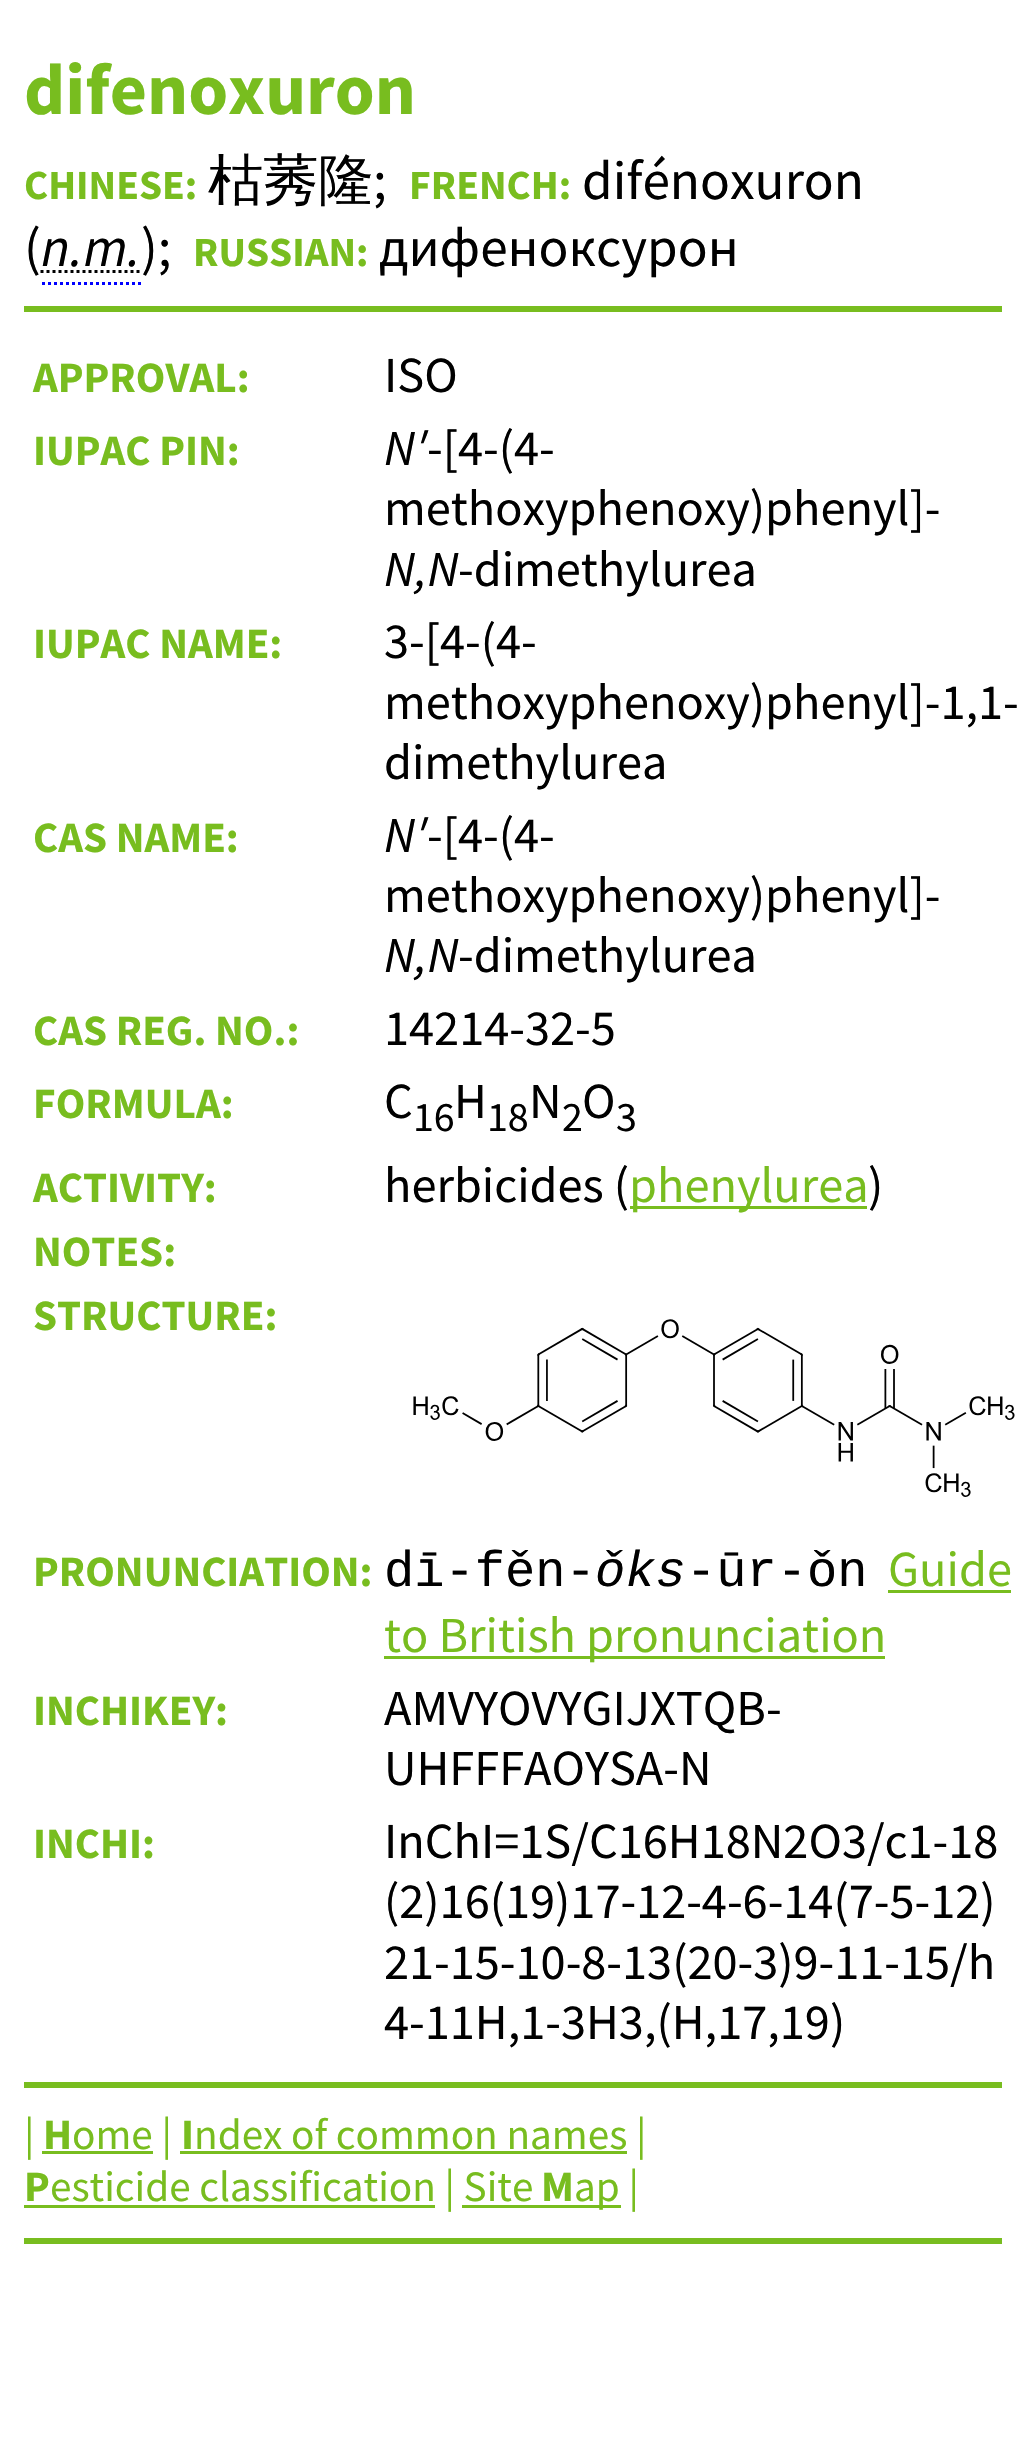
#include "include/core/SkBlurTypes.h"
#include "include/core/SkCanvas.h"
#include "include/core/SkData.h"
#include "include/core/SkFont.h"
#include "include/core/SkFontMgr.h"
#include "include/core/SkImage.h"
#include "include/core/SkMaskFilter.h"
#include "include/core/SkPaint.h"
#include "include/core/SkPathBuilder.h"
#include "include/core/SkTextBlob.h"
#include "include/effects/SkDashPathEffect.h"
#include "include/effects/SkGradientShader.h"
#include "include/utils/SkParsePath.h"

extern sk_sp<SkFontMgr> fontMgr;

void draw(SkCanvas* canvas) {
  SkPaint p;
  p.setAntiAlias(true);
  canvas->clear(SK_ColorWHITE);
  p.setStyle(SkPaint::kStroke_Style);
  p.setStrokeWidth(3);
  p.setColor(SkColorSetRGB(0, 0, 255));
  p.setPathEffect(SkDashPathEffect::Make({{3, 3}}, 0));
  canvas->drawPath(SkPathBuilder().moveTo(42, 283.5f).lineTo(141, 283.5f).detach(), p);
  p.setPathEffect(nullptr);
  p.setColor(SK_ColorBLACK);
  p.setPathEffect(SkDashPathEffect::Make({{3, 3}}, 0));
  canvas->drawPath(SkPathBuilder().moveTo(40.5f, 271.5f).lineTo(140.5f, 271.5f).detach(), p);
  p.setPathEffect(nullptr);
  p.setStyle(SkPaint::kFill_Style);
  p.setColor(SkColorSetRGB(120, 189, 31));
  canvas->drawRect(SkRect::MakeLTRB(24, 306, 1002, 312), p);
  canvas->drawRect(SkRect::MakeLTRB(630, 1206, 867, 1209), p);
  canvas->drawImageRect(SkImages::DeferredFromEncodedData(SkData::MakeFromFileName("images/1.png")), SkRect::MakeLTRB(413, 1319, 1015, 1497), SkSamplingOptions());
  canvas->drawRect(SkRect::MakeLTRB(888, 1590, 1011, 1593), p);
  canvas->drawRect(SkRect::MakeLTRB(384, 1656, 885, 1659), p);
  canvas->drawRect(SkRect::MakeLTRB(24, 2082, 1002, 2088), p);
  canvas->drawRect(SkRect::MakeLTRB(42, 2151, 153, 2154), p);
  canvas->drawRect(SkRect::MakeLTRB(180, 2151, 627, 2154), p);
  canvas->drawRect(SkRect::MakeLTRB(24, 2205, 435, 2208), p);
  canvas->drawRect(SkRect::MakeLTRB(462, 2205, 621, 2208), p);
  canvas->drawRect(SkRect::MakeLTRB(24, 2238, 1002, 2244), p);
  SkFont font1(fontMgr->matchFamilyStyle("Source Sans Pro", SkFontStyle::Bold()), 72);
  font1.setSubpixel(true);
  canvas->drawString("difenoxuron", 24, 114, font1, p);
  SkFont font2(fontMgr->matchFamilyStyle("Source Sans Pro", SkFontStyle::Bold()), 41.5f);
  font2.setSubpixel(true);
  canvas->drawString("CHINESE:", 24, 199, font2, p);
  SkFont font3(fontMgr->matchFamilyStyle("WenQuanYi Zen Hei", SkFontStyle(500, SkFontStyle::kNormal_Width, SkFontStyle::kUpright_Slant)), 55.25f);
  font3.setSubpixel(true);
  p.setColor(SK_ColorBLACK);
  canvas->drawString("枯莠隆", 208, 199, font3, p);
  SkFont font4(fontMgr->matchFamilyStyle("Source Sans Pro", SkFontStyle::Normal()), 55.25f);
  font4.setSubpixel(true);
  canvas->drawString(";", 373, 199, font4, p);
  p.setColor(SkColorSetRGB(120, 189, 31));
  canvas->drawString("FRENCH:", 409, 199, font2, p);
  p.setColor(SK_ColorBLACK);
  canvas->drawString("difénoxuron", 582, 199, font4, p);
  canvas->drawString("(", 24, 266, font4, p);
  SkFont font5(fontMgr->matchFamilyStyle("Source Sans Pro", SkFontStyle::Italic()), 55.25f);
  font5.setSubpixel(true);
  canvas->drawString("n.m.", 41, 266, font5, p);
  canvas->drawString(");", 141, 266, font4, p);
  p.setColor(SkColorSetRGB(120, 189, 31));
  canvas->drawString("RUSSIAN:", 193, 266, font2, p);
  p.setColor(SK_ColorBLACK);
  canvas->drawString("дифеноксурон", 379, 266, font4, p);
  SkFont font6(fontMgr->matchFamilyStyle("Source Sans Pro", SkFontStyle::Bold()), 43.25f);
  font6.setSubpixel(true);
  p.setColor(SkColorSetRGB(120, 189, 31));
  canvas->drawString("APPROVAL:", 33, 392, font6, p);
  SkFont font7(fontMgr->matchFamilyStyle("Source Sans Pro", SkFontStyle::Normal()), 50.4f);
  font7.setSubpixel(true);
  p.setColor(SK_ColorBLACK);
  canvas->drawString("ISO", 384, 392, font7, p);
  p.setColor(SkColorSetRGB(120, 189, 31));
  canvas->drawString("IUPAC PIN:", 33, 465, font6, p);
  SkFont font8(fontMgr->matchFamilyStyle("Source Sans Pro", SkFontStyle::Italic()), 50.4f);
  font8.setSubpixel(true);
  p.setColor(SK_ColorBLACK);
  canvas->drawString("N′", 384, 465, font8, p);
  canvas->drawString("-[4-(4-", 427, 465, font7, p);
  canvas->drawString("methoxyphenoxy)phenyl]-", 384, 525, font7, p);
  canvas->drawString("N,N", 384, 586, font8, p);
  canvas->drawString("-dimethylurea", 458, 586, font7, p);
  p.setColor(SkColorSetRGB(120, 189, 31));
  canvas->drawString("IUPAC NAME:", 33, 658, font6, p);
  p.setColor(SK_ColorBLACK);
  canvas->drawString("3-[4-(4-", 384, 658, font7, p);
  canvas->drawString("methoxyphenoxy)phenyl]-1,1-", 384, 719, font7, p);
  canvas->drawString("dimethylurea", 384, 779, font7, p);
  p.setColor(SkColorSetRGB(120, 189, 31));
  canvas->drawString("CAS NAME:", 33, 852, font6, p);
  p.setColor(SK_ColorBLACK);
  canvas->drawString("N′", 384, 852, font8, p);
  canvas->drawString("-[4-(4-", 427, 852, font7, p);
  canvas->drawString("methoxyphenoxy)phenyl]-", 384, 912, font7, p);
  canvas->drawString("N,N", 384, 972, font8, p);
  canvas->drawString("-dimethylurea", 458, 972, font7, p);
  p.setColor(SkColorSetRGB(120, 189, 31));
  canvas->drawString("CAS REG. NO.:", 33, 1045, font6, p);
  p.setColor(SK_ColorBLACK);
  canvas->drawString("14214-32-5", 384, 1045, font7, p);
  p.setColor(SkColorSetRGB(120, 189, 31));
  canvas->drawString("FORMULA:", 33, 1118, font6, p);
  p.setColor(SK_ColorBLACK);
  canvas->drawString("C", 384, 1118, font7, p);
  SkFont font9(fontMgr->matchFamilyStyle("Source Sans Pro", SkFontStyle::Normal()), 42);
  font9.setSubpixel(true);
  canvas->drawString("16", 413, 1131, font9, p);
  canvas->drawString("H", 454, 1118, font7, p);
  canvas->drawString("18", 487, 1131, font9, p);
  canvas->drawString("N", 529, 1118, font7, p);
  canvas->drawString("2", 562, 1131, font9, p);
  canvas->drawString("O", 582, 1118, font7, p);
  canvas->drawString("3", 616, 1131, font9, p);
  p.setColor(SkColorSetRGB(120, 189, 31));
  canvas->drawString("ACTIVITY:", 33, 1202, font6, p);
  p.setColor(SK_ColorBLACK);
  canvas->drawString("herbicides (", 384, 1202, font7, p);
  p.setColor(SkColorSetRGB(120, 189, 31));
  canvas->drawString("phenylurea", 629, 1202, font7, p);
  p.setColor(SK_ColorBLACK);
  canvas->drawString(")", 868, 1202, font7, p);
  p.setColor(SkColorSetRGB(120, 189, 31));
  canvas->drawString("NOTES:", 33, 1266, font6, p);
  canvas->drawString("STRUCTURE:", 33, 1330, font6, p);
  canvas->drawString("PRONUNCIATION:", 33, 1586, font6, p);
  SkFont font10(fontMgr->matchFamilyStyle("Liberation Mono", SkFontStyle::Normal()), 50.4f);
  font10.setSubpixel(true);
  p.setColor(SK_ColorBLACK);
  canvas->drawString("dī-fěn-", 384, 1586, font10, p);
  SkFont font11(fontMgr->matchFamilyStyle("Liberation Mono", SkFontStyle::Italic()), 50.4f);
  font11.setSubpixel(true);
  canvas->drawString("ǒks", 595, 1586, font11, p);
  canvas->drawString("-ūr-ǒn", 686, 1586, font10, p);
  p.setColor(SkColorSetRGB(120, 189, 31));
  canvas->drawString("Guide", 888, 1586, font7, p);
  canvas->drawString("to British pronunciation", 384, 1652, font7, p);
  canvas->drawString("INCHIKEY:", 33, 1725, font6, p);
  p.setColor(SK_ColorBLACK);
  canvas->drawString("AMVYOVYGIJXTQB-", 384, 1725, font7, p);
  canvas->drawString("UHFFFAOYSA-N", 384, 1785, font7, p);
  p.setColor(SkColorSetRGB(120, 189, 31));
  canvas->drawString("INCHI:", 33, 1858, font6, p);
  p.setColor(SK_ColorBLACK);
  canvas->drawString("InChI=1S/C16H18N2O3/c1-18", 384, 1858, font7, p);
  canvas->drawString("(2)16(19)17-12-4-6-14(7-5-12)", 384, 1918, font7, p);
  canvas->drawString("21-15-10-8-13(20-3)9-11-15/h", 384, 1979, font7, p);
  canvas->drawString("4-11H,1-3H3,(H,17,19)", 384, 2039, font7, p);
  SkFont font12(fontMgr->matchFamilyStyle("Source Sans Pro", SkFontStyle::Normal()), 43.25f);
  font12.setSubpixel(true);
  p.setColor(SkColorSetRGB(120, 189, 31));
  canvas->drawString("|", 24, 2149, font12, p);
  canvas->drawString("H", 43, 2149, font6, p);
  canvas->drawString("ome |", 72, 2149, font12, p);
  canvas->drawString("I", 181, 2149, font6, p);
  canvas->drawString("ndex of common names |", 194, 2149, font12, p);
  canvas->drawString("P", 24, 2201, font6, p);
  canvas->drawString("esticide classification | Site", 50, 2201, font12, p);
  canvas->drawString("M", 541, 2201, font6, p);
  canvas->drawString("ap |", 574, 2201, font12, p);
}
